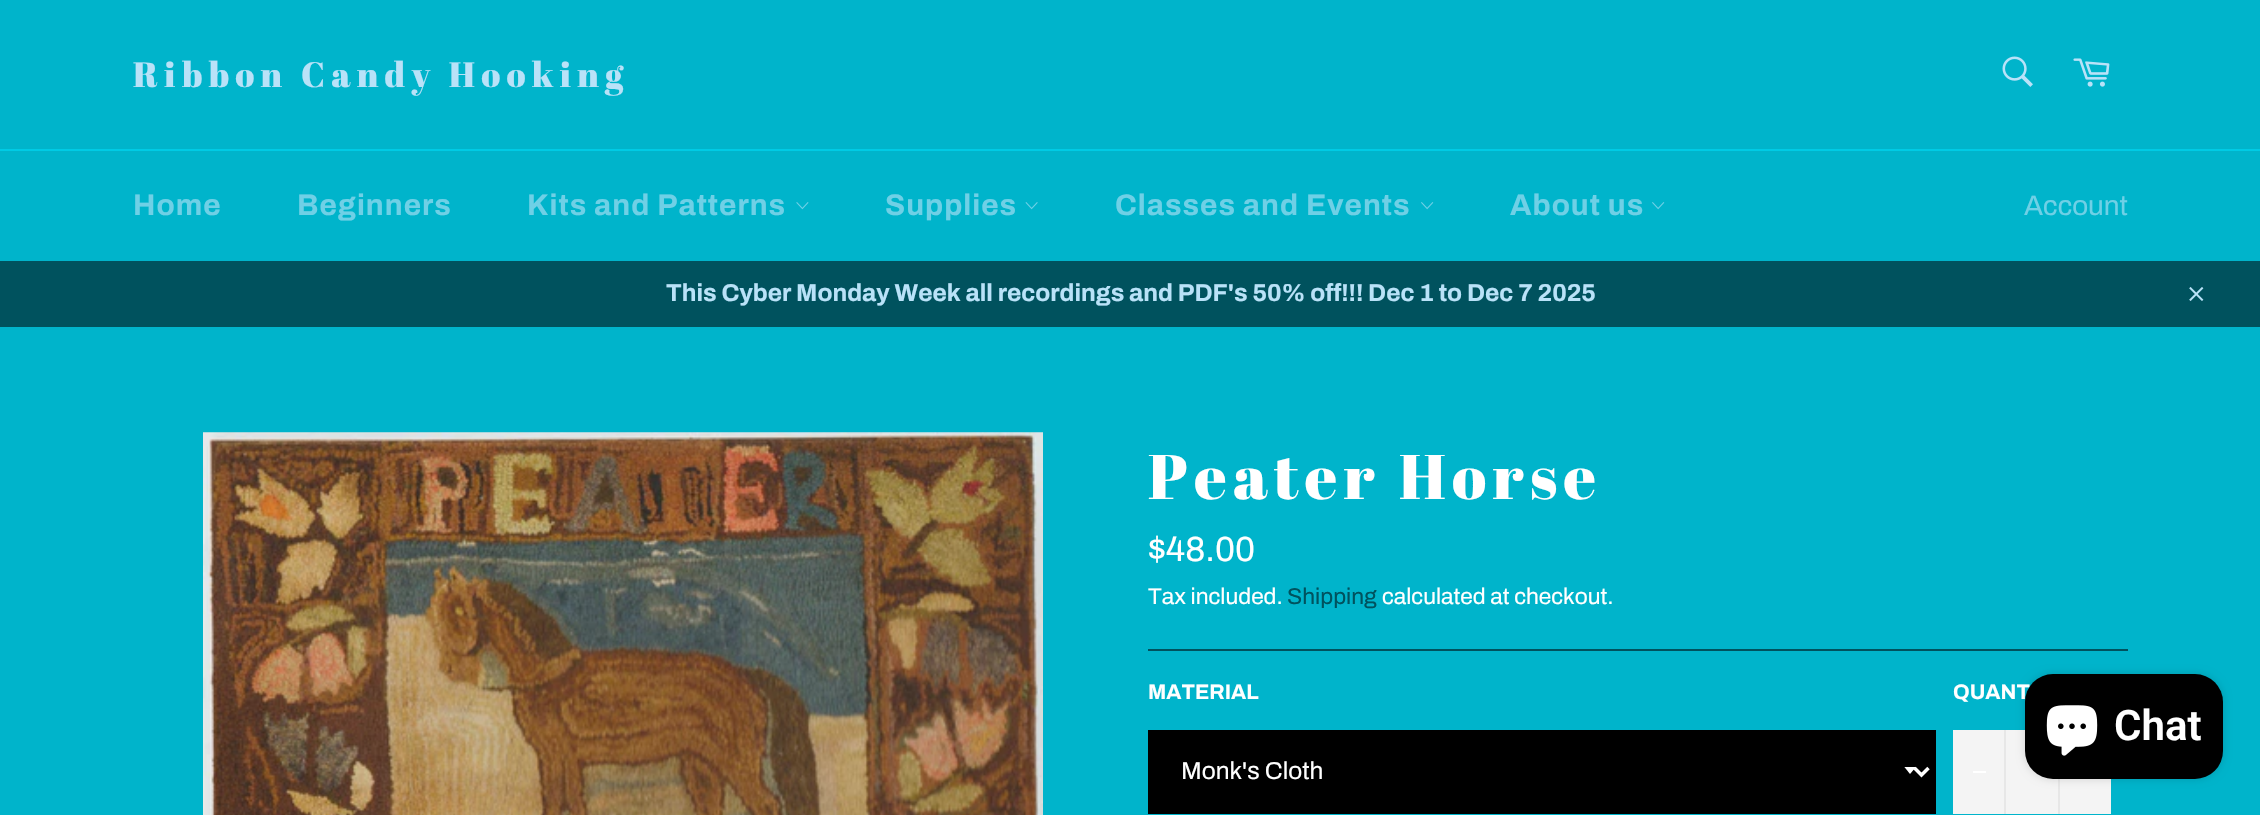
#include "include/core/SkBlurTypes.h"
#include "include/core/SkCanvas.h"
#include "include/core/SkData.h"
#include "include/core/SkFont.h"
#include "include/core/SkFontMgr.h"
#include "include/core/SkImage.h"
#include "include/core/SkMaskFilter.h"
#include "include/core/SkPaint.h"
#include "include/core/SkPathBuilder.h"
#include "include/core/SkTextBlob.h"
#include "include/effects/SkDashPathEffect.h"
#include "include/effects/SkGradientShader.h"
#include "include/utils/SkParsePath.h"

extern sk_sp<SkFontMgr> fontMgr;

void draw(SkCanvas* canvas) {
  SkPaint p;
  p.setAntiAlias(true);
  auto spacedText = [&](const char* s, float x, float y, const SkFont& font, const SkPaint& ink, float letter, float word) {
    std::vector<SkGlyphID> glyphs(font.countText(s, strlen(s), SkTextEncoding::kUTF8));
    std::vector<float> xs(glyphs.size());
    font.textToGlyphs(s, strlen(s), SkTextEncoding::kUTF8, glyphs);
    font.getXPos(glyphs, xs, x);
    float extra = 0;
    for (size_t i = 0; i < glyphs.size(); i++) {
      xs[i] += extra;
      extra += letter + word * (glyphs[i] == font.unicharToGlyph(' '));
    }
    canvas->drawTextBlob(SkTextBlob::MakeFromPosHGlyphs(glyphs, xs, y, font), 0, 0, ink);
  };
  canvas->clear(SkColorSetRGB(0, 180, 203));
  canvas->drawImageRect(SkImages::DeferredFromEncodedData(SkData::MakeFromFileName("images/1.png")), SkRect::MakeLTRB(2002, 56, 2033, 87), SkSamplingOptions());
  canvas->drawImageRect(SkImages::DeferredFromEncodedData(SkData::MakeFromFileName("images/2.png")), SkRect::MakeLTRB(2073, 58, 2110, 87), SkSamplingOptions());
  p.setColor(SkColorSetRGB(0, 203, 229));
  canvas->drawRect(SkRect::MakeLTRB(0, 149, 2260, 151), p);
  canvas->drawImageRect(SkImages::DeferredFromEncodedData(SkData::MakeFromFileName("images/3.png")), SkRect::MakeLTRB(796, 202, 809, 210), SkSamplingOptions());
  canvas->drawImageRect(SkImages::DeferredFromEncodedData(SkData::MakeFromFileName("images/4.png")), SkRect::MakeLTRB(1025, 202, 1038, 210), SkSamplingOptions());
  canvas->drawImageRect(SkImages::DeferredFromEncodedData(SkData::MakeFromFileName("images/5.png")), SkRect::MakeLTRB(1421, 202, 1434, 210), SkSamplingOptions());
  canvas->drawImageRect(SkImages::DeferredFromEncodedData(SkData::MakeFromFileName("images/5.png")), SkRect::MakeLTRB(1652, 202, 1665, 210), SkSamplingOptions());
  p.setColor(SkColorSetRGB(0, 82, 94));
  canvas->drawRect(SkRect::MakeLTRB(0, 261, 2260, 327), p);
  canvas->drawImageRect(SkImages::DeferredFromEncodedData(SkData::MakeFromFileName("images/6.png")), SkRect::MakeLTRB(2189, 287, 2204, 301), SkSamplingOptions());
  canvas->drawImageRect(SkImages::DeferredFromEncodedData(SkData::MakeFromFileName("images/7.png")), SkRect::MakeLTRB(203, 432, 1043, 815), SkSamplingOptions());
  canvas->drawRect(SkRect::MakeLTRB(1148, 649, 2128, 651), p);
  p.setColor(SK_ColorBLACK);
  canvas->drawRect(SkRect::MakeLTRB(1148, 730, 1936, 814), p);
  canvas->save();
  canvas->clipRect(SkRect::MakeLTRB(1904, 767, 1918, 775));
  p.setColor(SK_ColorWHITE);
  canvas->drawPath(SkPathBuilder().moveTo(1904, 766.5f).lineTo(1910, 774).lineTo(1916.5f, 766.5f).close().detach(), p);
  canvas->restore();
  p.setStyle(SkPaint::kStroke_Style);
  p.setStrokeWidth(3.5f);
  canvas->drawPath(SkPathBuilder().moveTo(1914.5f, 768).lineTo(1921.5f, 775).lineTo(1928.5f, 768).detach(), p);
  p.setStyle(SkPaint::kFill_Style);
  p.setColor(SkColorSetRGB(244, 244, 244));
  canvas->drawRect(SkRect::MakeLTRB(1953, 730, 2111, 814), p);
  p.setColor(SkColorSetRGB(231, 231, 231));
  canvas->drawRect(SkRect::MakeLTRB(2004, 730, 2006, 814), p);
  p.setColor(SK_ColorWHITE);
  canvas->drawRect(SkRect::MakeLTRB(1973, 771, 1986, 773), p);
  p.setColor(SkColorSetRGB(231, 231, 231));
  canvas->drawRect(SkRect::MakeLTRB(2058, 779, 2060, 814), p);
  p.setColor(SkColorSetARGB(38, 0, 0, 0));
  p.setMaskFilter(SkMaskFilter::MakeBlur(kNormal_SkBlurStyle, 4.5f));
  canvas->drawRoundRect(SkRect::MakeLTRB(2025, 674, 2223, 779), 28, 28, p);
  p.setMaskFilter(nullptr);
  SkFont font1(fontMgr->matchFamilyStyle("Abril Fatface", SkFontStyle::Normal()), 35);
  font1.setSubpixel(true);
  p.setColor(SkColorSetRGB(185, 226, 248));
  spacedText("Ribbon Candy Hooking", 133, 87, font1, p, 6.25f, 0);
  SkFont font2(fontMgr->matchFamilyStyle("Archivo", SkFontStyle::Bold()), 29.75f);
  font2.setSubpixel(true);
  p.setColor(SkColorSetRGB(111, 208, 230));
  spacedText("Home", 133, 215, font2, p, 1, 0);
  spacedText("Beginners", 297, 215, font2, p, 1, 0);
  spacedText("Kits and Patterns", 527, 215, font2, p, 1, 0);
  spacedText("Supplies", 885, 215, font2, p, 1, 0);
  spacedText("Classes and Events", 1115, 215, font2, p, 1, 0);
  spacedText("About us", 1510, 215, font2, p, 1, 0);
  SkFont font3(fontMgr->matchFamilyStyle("Archivo", SkFontStyle::Normal()), 28);
  font3.setSubpixel(true);
  canvas->drawString("Account", 2024, 215, font3, p);
  SkFont font4(fontMgr->matchFamilyStyle("Archivo", SkFontStyle::Bold()), 24.5f);
  font4.setSubpixel(true);
  p.setColor(SkColorSetRGB(185, 226, 248));
  canvas->drawString("This Cyber Monday Week all recordings and PDF's 50% off!!! Dec 1 to Dec 7 2025", 666, 301, font4, p);
  SkFont font5(fontMgr->matchFamilyStyle("Abril Fatface", SkFontStyle::Normal()), 63);
  font5.setSubpixel(true);
  p.setColor(SK_ColorWHITE);
  spacedText("Peater Horse", 1148, 499, font5, p, 6.25f, 0);
  SkFont font6(fontMgr->matchFamilyStyle("Archivo", SkFontStyle::Normal()), 35);
  font6.setSubpixel(true);
  canvas->drawString("$48.00", 1148, 561, font6, p);
  SkFont font7(fontMgr->matchFamilyStyle("Archivo", SkFontStyle::Normal()), 22.75f);
  font7.setSubpixel(true);
  canvas->drawString("Tax included.", 1148, 604, font7, p);
  p.setColor(SkColorSetRGB(0, 82, 94));
  canvas->drawString("Shipping", 1287, 604, font7, p);
  p.setColor(SK_ColorWHITE);
  canvas->drawString("calculated at checkout.", 1382, 604, font7, p);
  SkFont font8(fontMgr->matchFamilyStyle("Archivo", SkFontStyle::Bold()), 21);
  font8.setSubpixel(true);
  canvas->drawString("MATERIAL", 1148, 699, font8, p);
  SkFont font9(fontMgr->matchFamilyStyle("Archivo", SkFontStyle::Normal()), 24.5f);
  font9.setSubpixel(true);
  canvas->drawString("Monk's Cloth", 1181, 779, font9, p);
  canvas->drawString("QUANT", 1953, 699, font8, p);
  p.setColor(SK_ColorBLACK);
  canvas->drawRoundRect(SkRect::MakeLTRB(2025, 674, 2223, 779), 28, 28, p);
  canvas->drawImageRect(SkImages::DeferredFromEncodedData(SkData::MakeFromFileName("images/8.png")), SkRect::MakeLTRB(2046, 705, 2098, 756), SkSamplingOptions());
  SkFont font10(fontMgr->matchFamilyStyle("Roboto", SkFontStyle(600, SkFontStyle::kNormal_Width, SkFontStyle::kUpright_Slant)), 42);
  font10.setSubpixel(true);
  p.setColor(SK_ColorWHITE);
  canvas->drawString("Chat", 2114, 740, font10, p);
}
